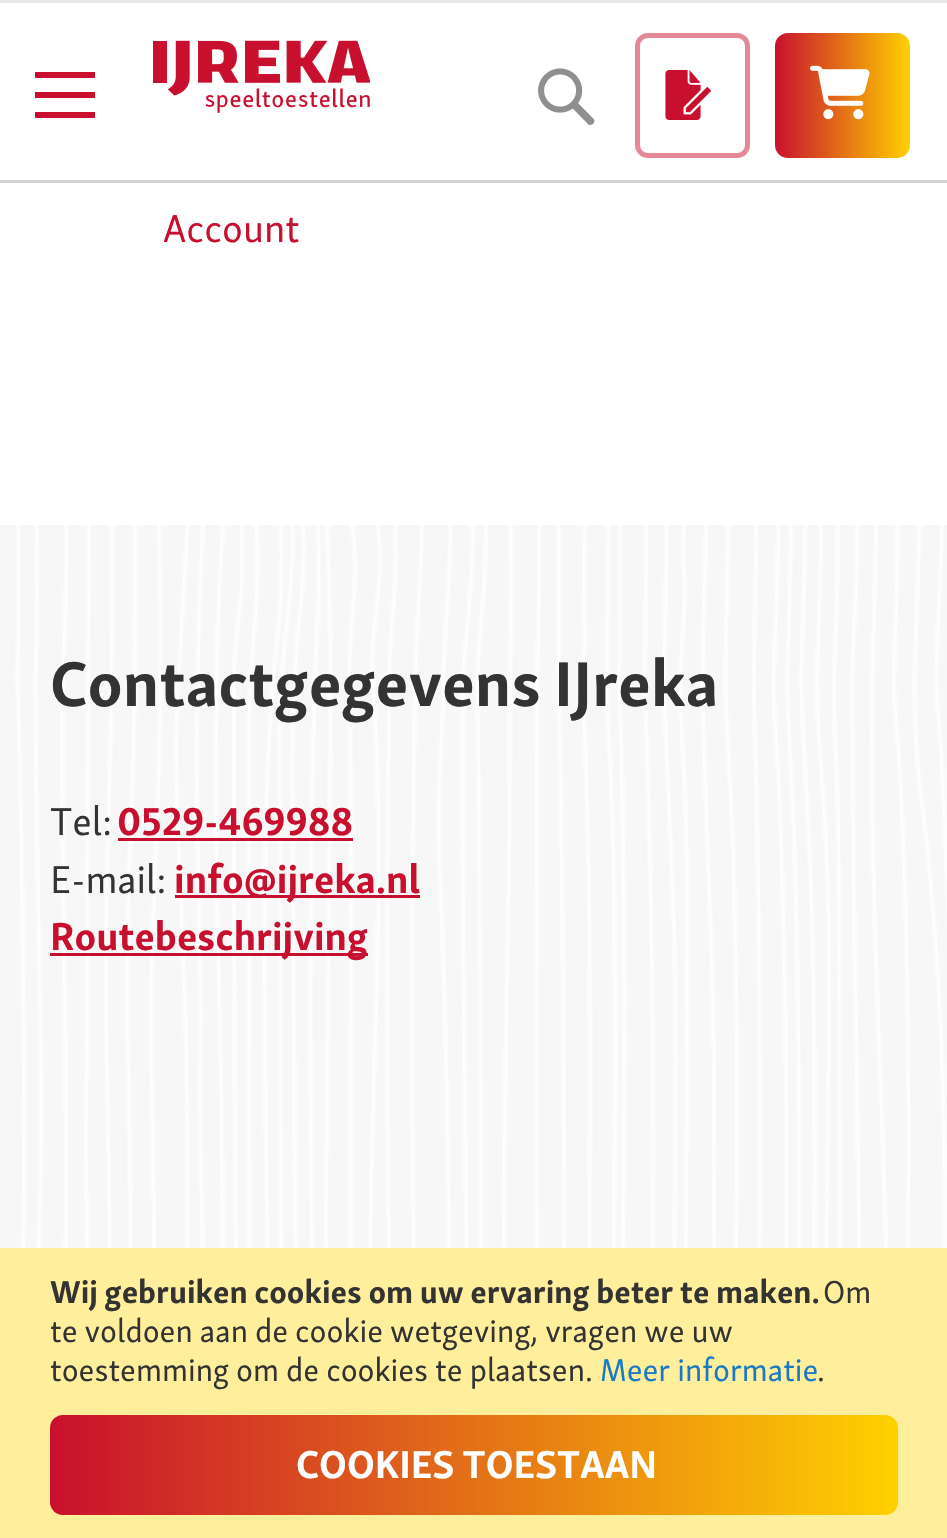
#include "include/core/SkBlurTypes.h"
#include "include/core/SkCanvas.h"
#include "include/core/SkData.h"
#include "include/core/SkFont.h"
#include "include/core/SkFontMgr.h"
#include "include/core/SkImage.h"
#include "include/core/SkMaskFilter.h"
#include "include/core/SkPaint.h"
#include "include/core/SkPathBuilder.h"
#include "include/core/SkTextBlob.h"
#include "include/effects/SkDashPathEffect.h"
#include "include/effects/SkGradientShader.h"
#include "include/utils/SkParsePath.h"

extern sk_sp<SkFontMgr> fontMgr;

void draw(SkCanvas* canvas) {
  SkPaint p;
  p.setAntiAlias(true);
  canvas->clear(SK_ColorWHITE);
  p.setColor(SkColorSetRGB(209, 209, 209));
  canvas->drawRect(SkRect::MakeLTRB(0, 180, 947, 183), p);
  p.setColor(SkColorSetRGB(232, 232, 232));
  canvas->drawRect(SkRect::MakeLTRB(0, 0, 947, 3), p);
  p.setColor(SkColorSetRGB(200, 16, 46));
  canvas->drawPath(SkPathBuilder().moveTo(35, 72).lineTo(35, 78).lineTo(95, 78).lineTo(95, 72).close().moveTo(35, 98).lineTo(95, 98).lineTo(95, 92).lineTo(35, 92).close().moveTo(35, 118).lineTo(95, 118).lineTo(95, 112).lineTo(35, 112).close().detach(), p);
  canvas->drawImageRect(SkImages::DeferredFromEncodedData(SkData::MakeFromFileName("images/1.png")), SkRect::MakeLTRB(153, 40, 370, 113), SkSamplingOptions());
  canvas->drawImageRect(SkImages::DeferredFromEncodedData(SkData::MakeFromFileName("images/2.png")), SkRect::MakeLTRB(538, 68, 595, 125), SkSamplingOptions());
  p.setStyle(SkPaint::kStroke_Style);
  p.setStrokeWidth(5);
  p.setColor(SkColorSetRGB(228, 136, 151));
  canvas->drawRoundRect(SkRect::MakeLTRB(637.5f, 35.5f, 747.5f, 155.5f), 10.5f, 10.5f, p);
  canvas->drawImageRect(SkImages::DeferredFromEncodedData(SkData::MakeFromFileName("images/3.png")), SkRect::MakeLTRB(665, 70, 712, 120), SkSamplingOptions());
  p.setStyle(SkPaint::kFill_Style);
  {
    const SkColor colors[] = {SkColorSetRGB(200, 16, 46), SkColorSetRGB(255, 209, 0)};
    const float stops[] = {0, 1};
    const SkPoint ends[] = {{775, 95}, {910, 95}};
    p.setShader(SkGradientShader::MakeLinear(ends, colors, stops, 2, SkTileMode::kClamp));
    p.setAlpha(255);
  }
  canvas->drawRoundRect(SkRect::MakeLTRB(775, 33, 910, 158), 13, 13, p);
  canvas->drawImageRect(SkImages::DeferredFromEncodedData(SkData::MakeFromFileName("images/4.png")), SkRect::MakeLTRB(810, 65, 870, 120), SkSamplingOptions());
  p.setShader(nullptr);
  p.setColor(SkColorSetRGB(247, 247, 247));
  canvas->drawRect(SkRect::MakeLTRB(0, 525, 947, 1248), p);
  canvas->drawImageRect(SkImages::DeferredFromEncodedData(SkData::MakeFromFileName("images/5.png")), SkRect::MakeLTRB(15, 525, 947, 1248), SkSamplingOptions());
  p.setColor(SkColorSetRGB(200, 16, 46));
  canvas->drawRect(SkRect::MakeLTRB(118, 838, 353, 841), p);
  canvas->drawRect(SkRect::MakeLTRB(175, 895, 420, 898), p);
  canvas->drawRect(SkRect::MakeLTRB(50, 953, 368, 956), p);
  p.setColor(SkColorSetRGB(255, 238, 156));
  canvas->drawRect(SkRect::MakeLTRB(0, 1248, 947, 1538), p);
  {
    const SkColor colors[] = {SkColorSetRGB(200, 16, 46), SkColorSetRGB(255, 209, 0)};
    const float stops[] = {0, 1};
    const SkPoint ends[] = {{50, 1465}, {898, 1465}};
    p.setShader(SkGradientShader::MakeLinear(ends, colors, stops, 2, SkTileMode::kClamp));
    p.setAlpha(255);
  }
  canvas->drawRoundRect(SkRect::MakeLTRB(50, 1415, 898, 1515), 13, 13, p);
  SkFont font1(fontMgr->matchFamilyStyle("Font", SkFontStyle::Normal()), 40);
  font1.setSubpixel(true);
  p.setShader(nullptr);
  p.setColor(SkColorSetRGB(200, 16, 46));
  canvas->drawString("Account", 163, 242, font1, p);
  SkFont font2(fontMgr->matchFamilyStyle("Font", SkFontStyle::Bold()), 65);
  font2.setSubpixel(true);
  p.setColor(SkColorSetRGB(51, 51, 51));
  canvas->drawString("Contactgegevens IJreka", 50, 706, font2, p);
  canvas->drawString("Tel:", 50, 835, font1, p);
  SkFont font3(fontMgr->matchFamilyStyle("Font", SkFontStyle::Bold()), 40);
  font3.setSubpixel(true);
  p.setColor(SkColorSetRGB(200, 16, 46));
  canvas->drawString("0529-469988", 117, 835, font3, p);
  p.setColor(SkColorSetRGB(51, 51, 51));
  canvas->drawString("E-mail:", 50, 893, font1, p);
  p.setColor(SkColorSetRGB(200, 16, 46));
  canvas->drawString("info@ijreka.nl", 174, 893, font3, p);
  canvas->drawString("Routebeschrijving", 50, 950, font3, p);
  SkFont font4(fontMgr->matchFamilyStyle("Font", SkFontStyle::Bold()), 32.5f);
  font4.setSubpixel(true);
  p.setColor(SkColorSetRGB(51, 51, 51));
  canvas->drawString("Wij gebruiken cookies om uw ervaring beter te maken.", 50, 1303, font4, p);
  SkFont font5(fontMgr->matchFamilyStyle("Font", SkFontStyle::Normal()), 32.5f);
  font5.setSubpixel(true);
  canvas->drawString("Om", 823, 1303, font5, p);
  canvas->drawString("te voldoen aan de cookie wetgeving, vragen we uw", 50, 1342, font5, p);
  canvas->drawString("toestemming om de cookies te plaatsen.", 50, 1381, font5, p);
  p.setColor(SkColorSetRGB(25, 121, 195));
  canvas->drawString("Meer informatie", 600, 1381, font5, p);
  p.setColor(SkColorSetRGB(51, 51, 51));
  canvas->drawString(".", 817, 1381, font5, p);
  p.setColor(SK_ColorWHITE);
  canvas->drawString("COOKIES TOESTAAN", 296, 1478, font3, p);
}
